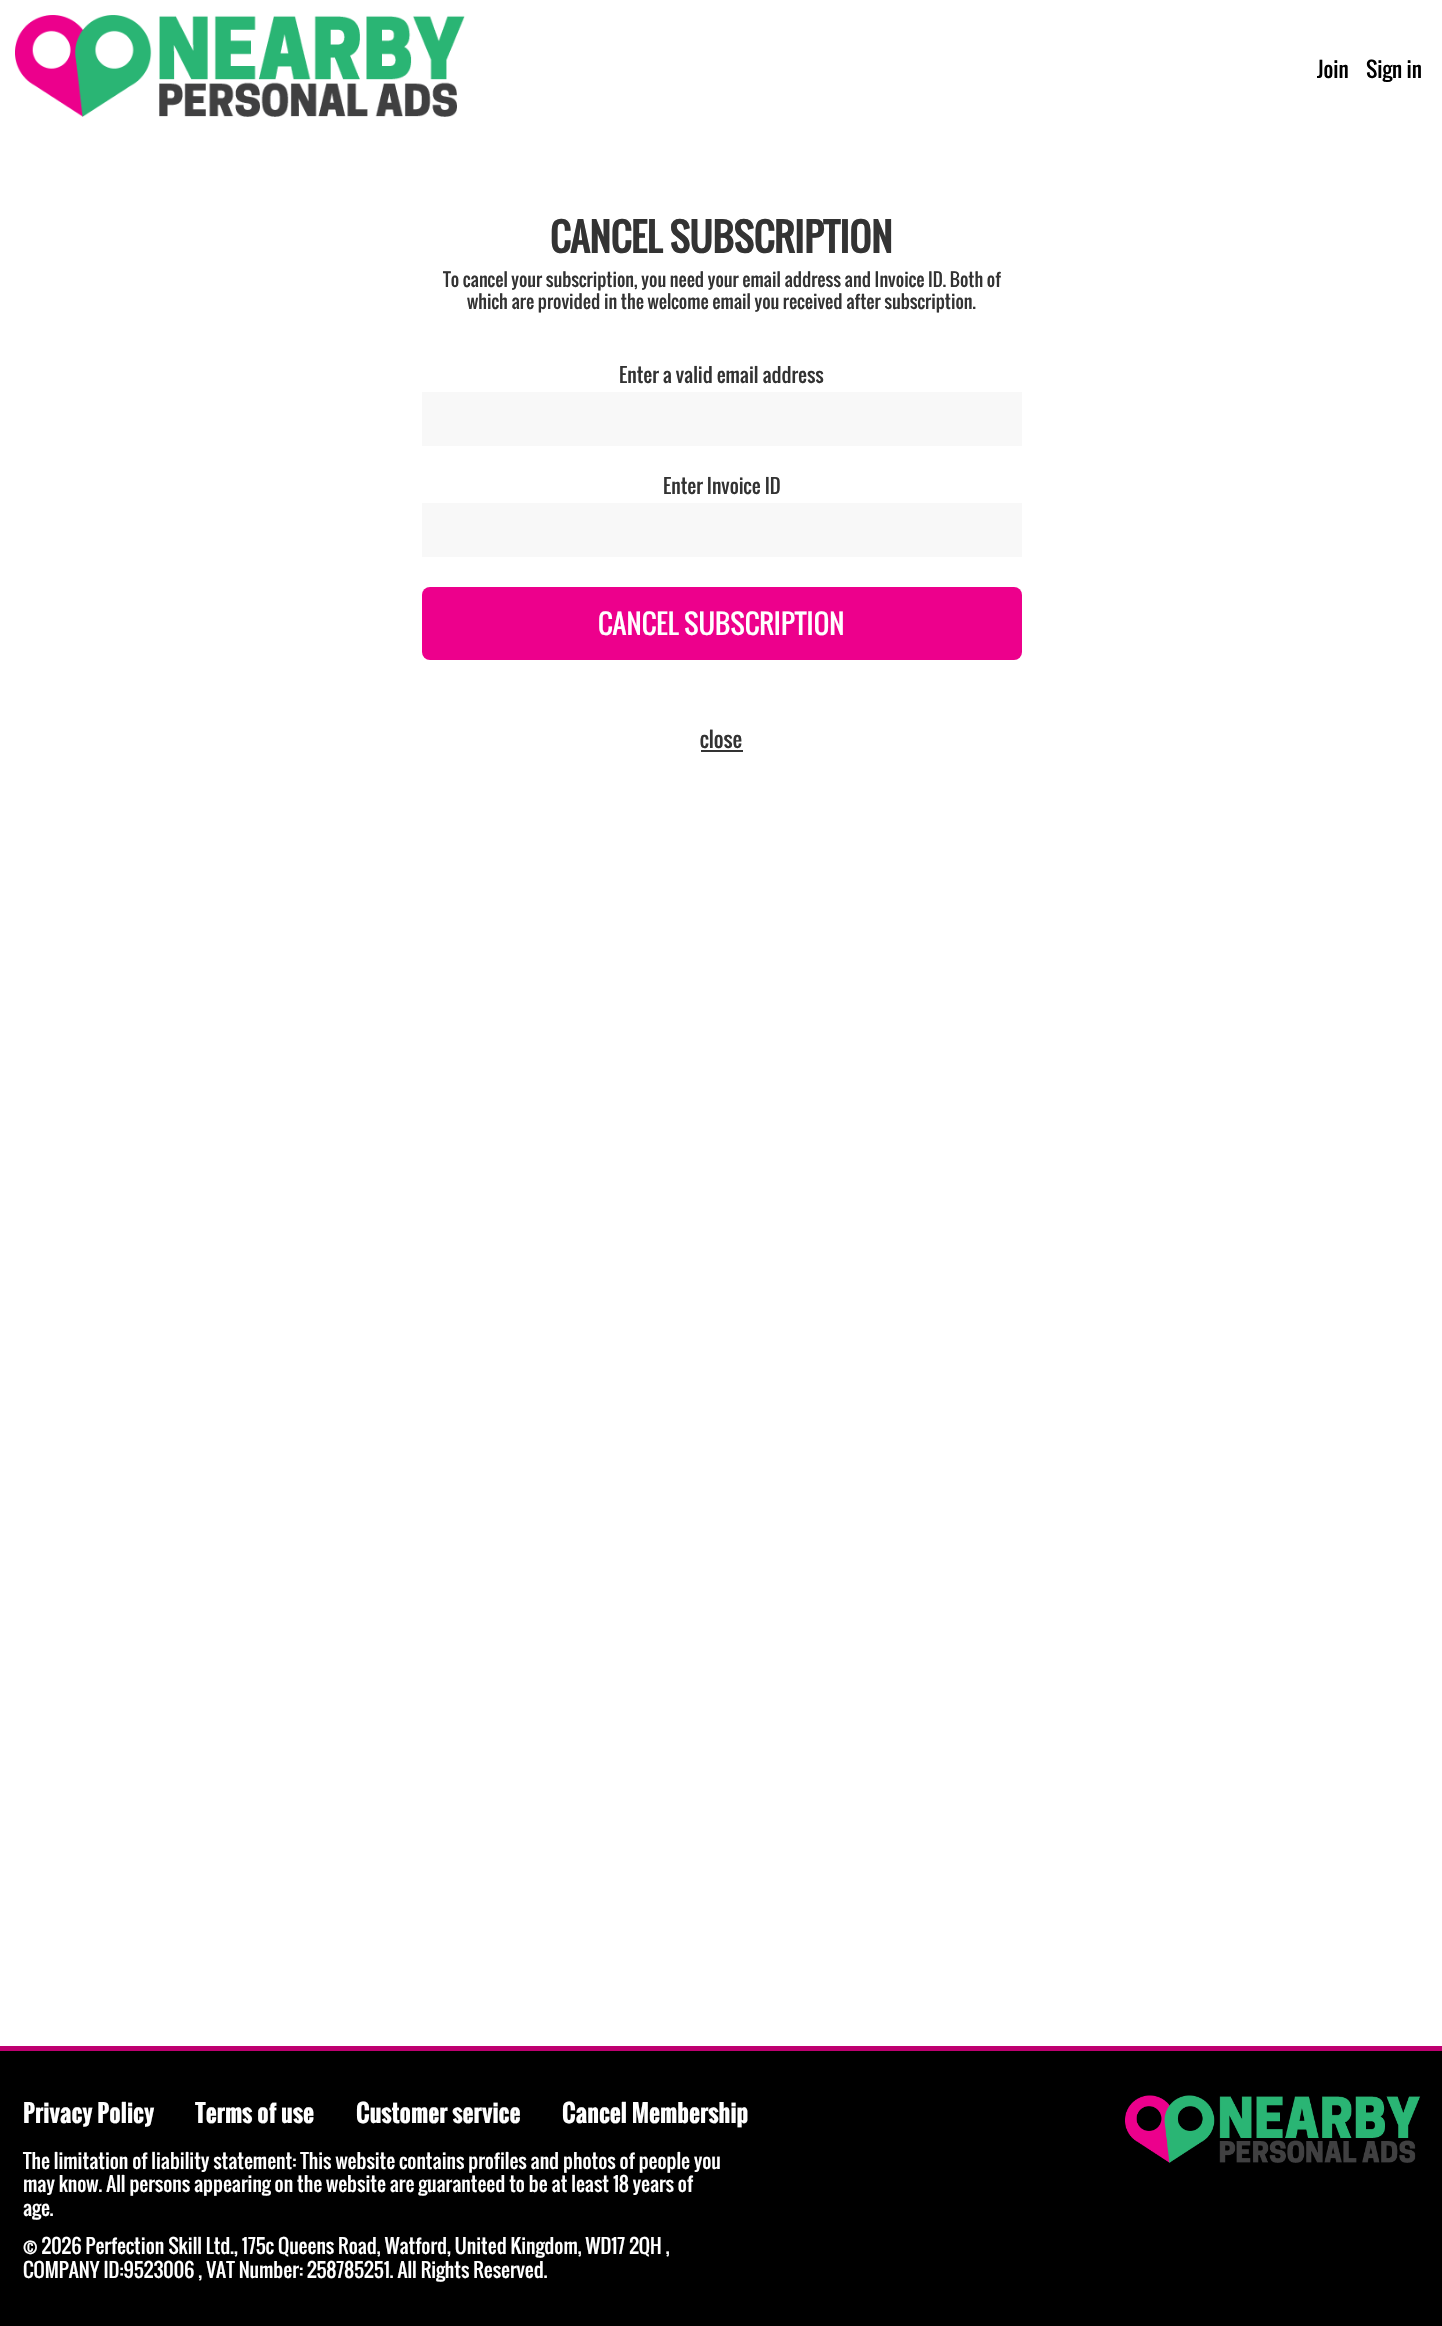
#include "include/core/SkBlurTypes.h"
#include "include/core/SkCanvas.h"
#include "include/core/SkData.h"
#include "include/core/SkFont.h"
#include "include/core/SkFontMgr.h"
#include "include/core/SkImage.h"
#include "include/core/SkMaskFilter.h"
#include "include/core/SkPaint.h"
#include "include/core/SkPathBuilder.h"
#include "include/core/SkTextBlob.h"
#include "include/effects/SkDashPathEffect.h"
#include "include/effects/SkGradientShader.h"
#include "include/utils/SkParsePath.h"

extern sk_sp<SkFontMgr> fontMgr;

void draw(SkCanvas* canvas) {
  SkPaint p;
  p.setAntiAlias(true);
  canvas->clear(SK_ColorWHITE);
  canvas->drawImageRect(SkImages::DeferredFromEncodedData(SkData::MakeFromFileName("images/1.png")), SkRect::MakeLTRB(15, 15, 465, 117), SkSamplingOptions());
  p.setColor(SkColorSetRGB(248, 248, 248));
  canvas->drawRect(SkRect::MakeLTRB(422, 392, 1022, 446), p);
  canvas->drawRect(SkRect::MakeLTRB(422, 503, 1022, 557), p);
  p.setColor(SkColorSetRGB(237, 0, 140));
  canvas->drawRoundRect(SkRect::MakeLTRB(422, 587, 1022, 660), 8, 8, p);
  p.setColor(SkColorSetRGB(51, 51, 51));
  canvas->drawRect(SkRect::MakeLTRB(701, 750, 743, 752), p);
  p.setColor(SK_ColorBLACK);
  canvas->drawRect(SkRect::MakeLTRB(0, 2051, 1442, 2326), p);
  p.setColor(SkColorSetRGB(190, 0, 112));
  canvas->drawRect(SkRect::MakeLTRB(0, 2046, 1442, 2051), p);
  canvas->drawImageRect(SkImages::DeferredFromEncodedData(SkData::MakeFromFileName("images/2.png")), SkRect::MakeLTRB(1125, 2095, 1421, 2163), SkSamplingOptions());
  SkFont font1(fontMgr->matchFamilyStyle("Oswald", SkFontStyle::Normal()), 21);
  font1.setSubpixel(true);
  p.setColor(SK_ColorBLACK);
  canvas->drawString("Join", 1317, 78, font1, p);
  canvas->drawString("Sign in", 1366, 78, font1, p);
  SkFont font2(fontMgr->matchFamilyStyle("Oswald", SkFontStyle::Bold()), 37.5f);
  font2.setSubpixel(true);
  p.setColor(SkColorSetRGB(51, 51, 51));
  canvas->drawString("CANCEL SUBSCRIPTION", 550, 253, font2, p);
  SkFont font3(fontMgr->matchFamilyStyle("Oswald", SkFontStyle::Normal()), 18);
  font3.setSubpixel(true);
  canvas->drawString("To cancel your subscription, you need your email address and Invoice ID. Both of", 443, 287, font3, p);
  canvas->drawString("which are provided in the welcome email you received after subscription.", 467, 309, font3, p);
  SkFont font4(fontMgr->matchFamilyStyle("Oswald", SkFontStyle::Normal()), 19.5f);
  font4.setSubpixel(true);
  canvas->drawString("Enter a valid email address", 619, 383, font4, p);
  canvas->drawString("Enter Invoice ID", 663, 494, font4, p);
  SkFont font5(fontMgr->matchFamilyStyle("Oswald", SkFontStyle::Normal()), 27);
  font5.setSubpixel(true);
  p.setColor(SK_ColorWHITE);
  canvas->drawString("CANCEL SUBSCRIPTION", 598, 635, font5, p);
  p.setColor(SkColorSetRGB(51, 51, 51));
  canvas->drawString("close", 700, 748, font1, p);
  SkFont font6(fontMgr->matchFamilyStyle("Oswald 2", SkFontStyle::Bold()), 24);
  font6.setSubpixel(true);
  p.setColor(SK_ColorWHITE);
  canvas->drawString("Privacy Policy", 23, 2123, font6, p);
  canvas->drawString("Terms of use", 195, 2123, font6, p);
  canvas->drawString("Customer service", 356, 2123, font6, p);
  canvas->drawString("Cancel Membership", 562, 2123, font6, p);
  canvas->drawString("The limitation of liability statement: This website contains profiles and photos of people you", 23, 2169, font4, p);
  canvas->drawString("may know. All persons appearing on the website are guaranteed to be at least 18 years of", 23, 2192, font4, p);
  canvas->drawString("age.", 23, 2216, font4, p);
  canvas->drawString("© 2026 Perfection Skill Ltd., 175c Queens Road, Watford, United Kingdom, WD17 2QH ,", 23, 2254, font4, p);
  canvas->drawString("COMPANY ID:9523006 , VAT Number: 258785251. All Rights Reserved.", 23, 2278, font4, p);
}
